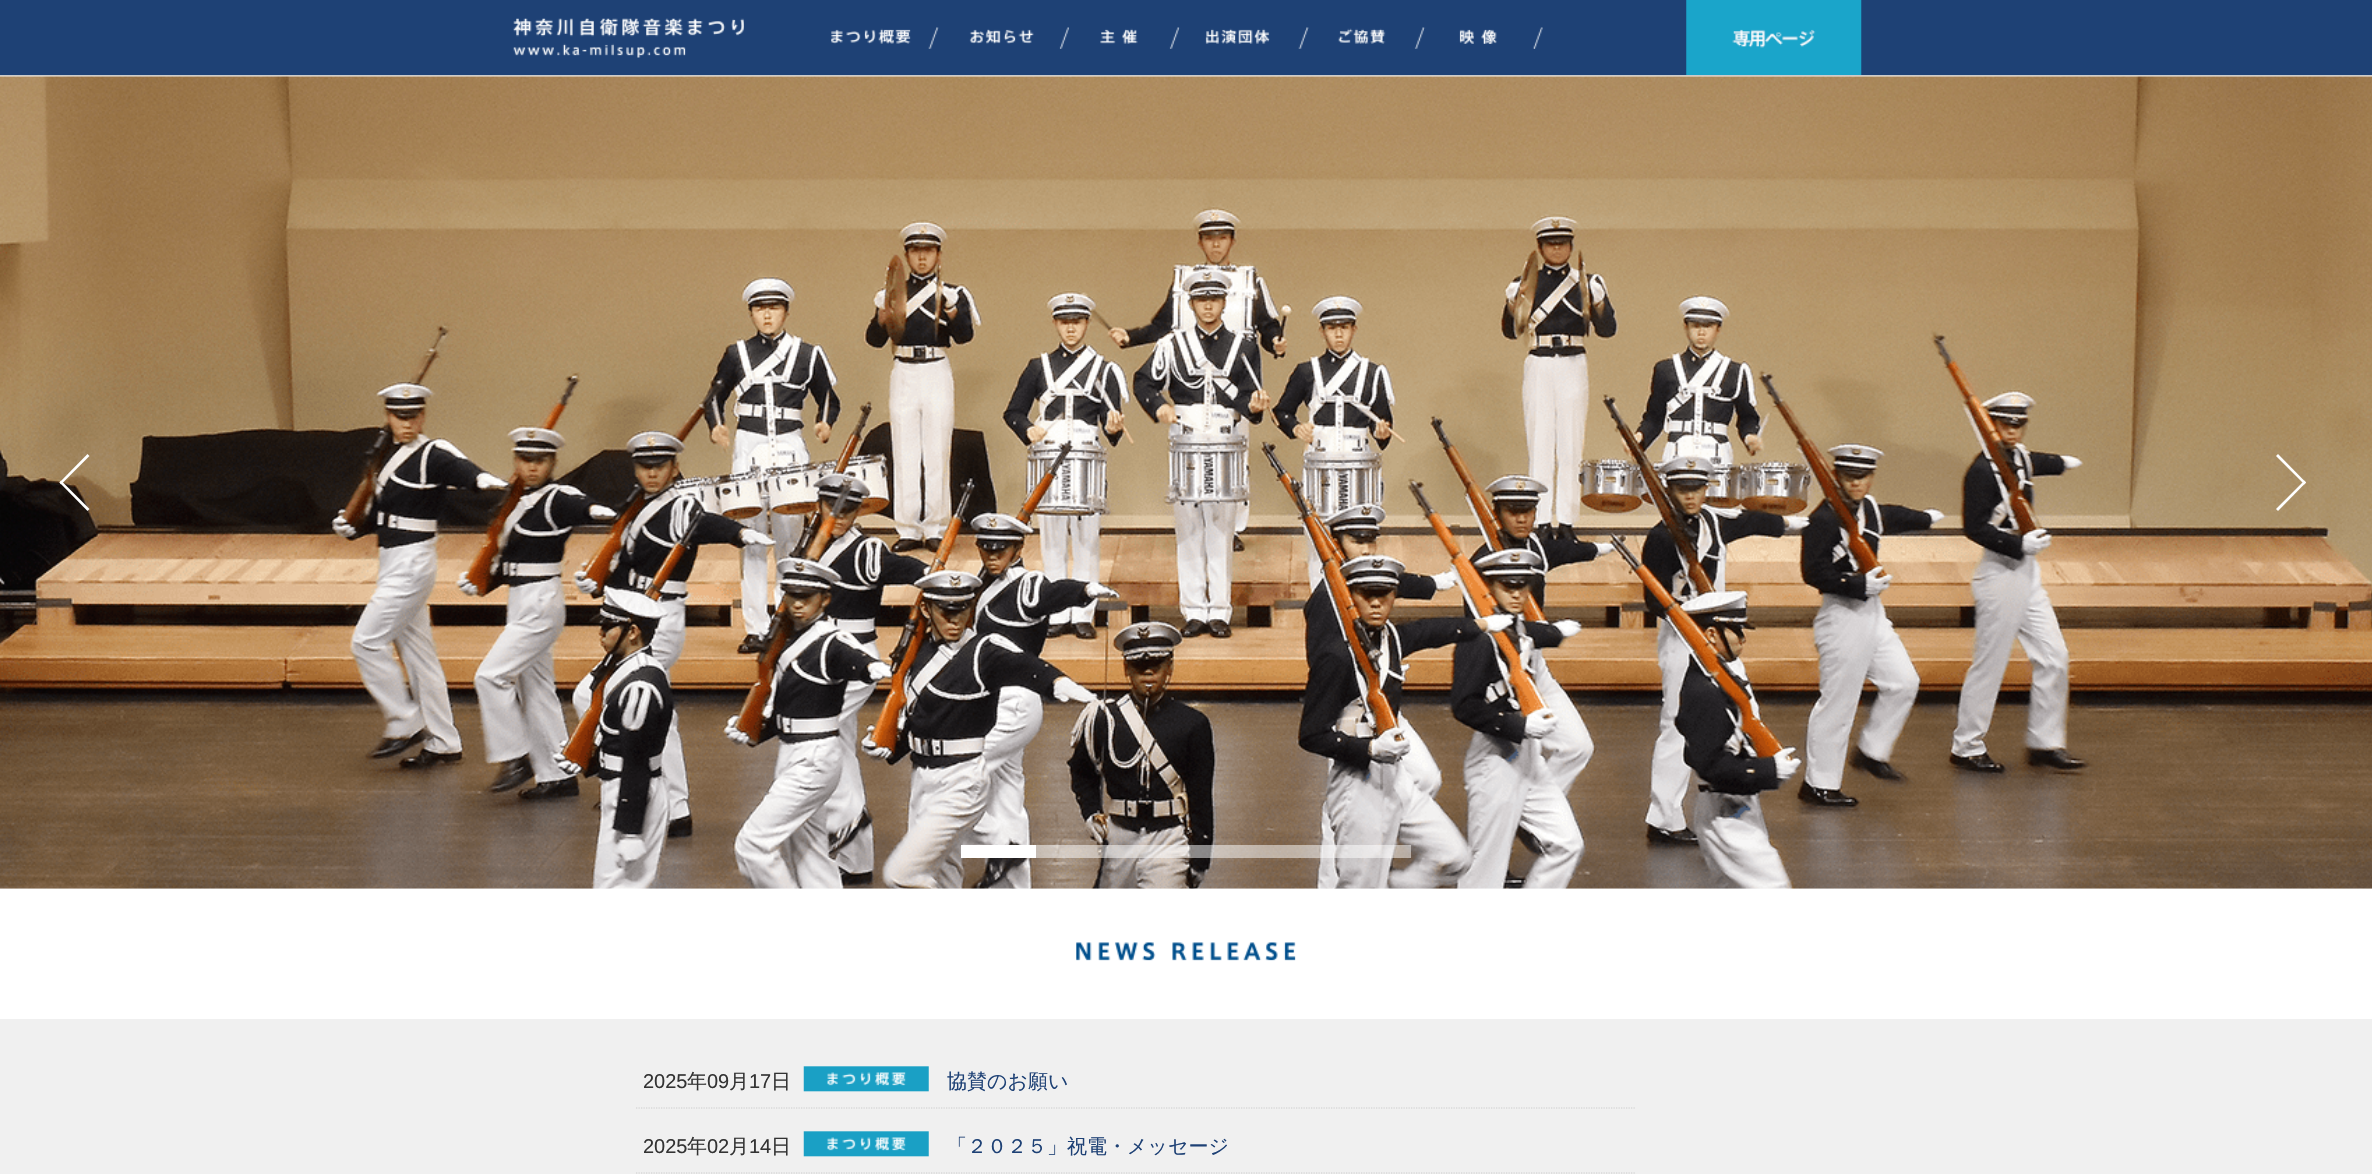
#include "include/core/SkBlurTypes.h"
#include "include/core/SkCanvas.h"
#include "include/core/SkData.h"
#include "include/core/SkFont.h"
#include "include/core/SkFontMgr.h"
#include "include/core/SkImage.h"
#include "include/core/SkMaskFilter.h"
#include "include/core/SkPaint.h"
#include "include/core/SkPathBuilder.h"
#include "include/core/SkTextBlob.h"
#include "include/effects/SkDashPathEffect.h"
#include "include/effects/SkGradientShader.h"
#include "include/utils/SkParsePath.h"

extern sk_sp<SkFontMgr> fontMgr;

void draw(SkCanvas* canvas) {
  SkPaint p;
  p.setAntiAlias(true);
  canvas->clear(SK_ColorWHITE);
  p.setColor(SkColorSetRGB(30, 65, 117));
  canvas->drawRect(SkRect::MakeLTRB(0, 0, 2372, 75), p);
  p.setColor(SkColorSetRGB(204, 204, 204));
  canvas->drawRect(SkRect::MakeLTRB(0, 75, 2372, 76), p);
  canvas->drawImageRect(SkImages::DeferredFromEncodedData(SkData::MakeFromFileName("images/1.png")), SkRect::MakeLTRB(513, 18, 744, 58), SkSamplingOptions());
  canvas->drawImageRect(SkImages::DeferredFromEncodedData(SkData::MakeFromFileName("images/2.png")), SkRect::MakeLTRB(928, 27, 1543, 49), SkSamplingOptions());
  canvas->drawImageRect(SkImages::DeferredFromEncodedData(SkData::MakeFromFileName("images/3.png")), SkRect::MakeLTRB(831, 28, 911, 44), SkSamplingOptions());
  canvas->drawImageRect(SkImages::DeferredFromEncodedData(SkData::MakeFromFileName("images/4.png")), SkRect::MakeLTRB(969, 29, 1034, 44), SkSamplingOptions());
  canvas->drawImageRect(SkImages::DeferredFromEncodedData(SkData::MakeFromFileName("images/5.png")), SkRect::MakeLTRB(1100, 28, 1138, 44), SkSamplingOptions());
  canvas->drawImageRect(SkImages::DeferredFromEncodedData(SkData::MakeFromFileName("images/6.png")), SkRect::MakeLTRB(1205, 28, 1270, 44), SkSamplingOptions());
  canvas->drawImageRect(SkImages::DeferredFromEncodedData(SkData::MakeFromFileName("images/7.png")), SkRect::MakeLTRB(1338, 28, 1386, 44), SkSamplingOptions());
  canvas->drawImageRect(SkImages::DeferredFromEncodedData(SkData::MakeFromFileName("images/8.png")), SkRect::MakeLTRB(1459, 29, 1497, 44), SkSamplingOptions());
  canvas->drawImageRect(SkImages::DeferredFromEncodedData(SkData::MakeFromFileName("images/9.png")), SkRect::MakeLTRB(1686, 0, 1862, 75), SkSamplingOptions());
  canvas->drawImageRect(SkImages::DeferredFromEncodedData(SkData::MakeFromFileName("images/10.png")), SkRect::MakeLTRB(0, 76, 2372, 889), SkSamplingOptions());
  p.setColor(SK_ColorWHITE);
  canvas->drawPath(SkPathBuilder().moveTo(59.5f, 482.5f).lineTo(87.5f, 454).lineTo(89.5f, 456).lineTo(61, 484.5f).close().detach(), p);
  canvas->drawPath(SkPathBuilder().moveTo(59.5f, 482.5f).lineTo(61, 480.5f).lineTo(89.5f, 509).lineTo(87.5f, 511).close().detach(), p);
  canvas->drawPath(SkPathBuilder().moveTo(2276, 456).lineTo(2278, 454).lineTo(2306, 482.5f).lineTo(2304.5f, 484.5f).close().detach(), p);
  canvas->drawPath(SkPathBuilder().moveTo(2276, 509).lineTo(2304.5f, 480.5f).lineTo(2306, 482.5f).lineTo(2278, 511).close().detach(), p);
  canvas->drawRect(SkRect::MakeLTRB(961, 845, 1036, 858), p);
  p.setColor(SkColorSetARGB(128, 255, 255, 255));
  canvas->drawRect(SkRect::MakeLTRB(1036, 845, 1111, 858), p);
  canvas->drawRect(SkRect::MakeLTRB(1111, 845, 1186, 858), p);
  canvas->drawRect(SkRect::MakeLTRB(1186, 845, 1261, 858), p);
  canvas->drawRect(SkRect::MakeLTRB(1261, 845, 1336, 858), p);
  canvas->drawRect(SkRect::MakeLTRB(1336, 845, 1411, 858), p);
  canvas->drawImageRect(SkImages::DeferredFromEncodedData(SkData::MakeFromFileName("images/11.png")), SkRect::MakeLTRB(1076, 942, 1296, 961), SkSamplingOptions());
  p.setColor(SkColorSetRGB(240, 240, 240));
  canvas->drawRect(SkRect::MakeLTRB(0, 1019, 2372, 1174), p);
  p.setStyle(SkPaint::kStroke_Style);
  p.setStrokeWidth(1.2f);
  p.setColor(SkColorSetRGB(204, 204, 204));
  p.setPathEffect(SkDashPathEffect::Make({{1.25f, 1.25f}}, 0));
  canvas->drawPath(SkPathBuilder().moveTo(636, 1108).lineTo(1636, 1108).detach(), p);
  p.setPathEffect(nullptr);
  canvas->drawImageRect(SkImages::DeferredFromEncodedData(SkData::MakeFromFileName("images/12.png")), SkRect::MakeLTRB(803, 1066, 929, 1092), SkSamplingOptions());
  p.setPathEffect(SkDashPathEffect::Make({{1.25f, 1.25f}}, 0));
  canvas->drawPath(SkPathBuilder().moveTo(636, 1173).lineTo(1636, 1173).detach(), p);
  p.setPathEffect(nullptr);
  canvas->drawImageRect(SkImages::DeferredFromEncodedData(SkData::MakeFromFileName("images/12.png")), SkRect::MakeLTRB(803, 1131, 929, 1157), SkSamplingOptions());
  SkFont font1(fontMgr->matchFamilyStyle("Liberation Sans", SkFontStyle::Normal()), 20);
  font1.setSubpixel(true);
  p.setStyle(SkPaint::kFill_Style);
  p.setColor(SkColorSetRGB(51, 51, 51));
  canvas->drawString("2025", 643, 1088, font1, p);
  SkFont font2(fontMgr->matchFamilyStyle("WenQuanYi Zen Hei", SkFontStyle(500, SkFontStyle::kNormal_Width, SkFontStyle::kUpright_Slant)), 20);
  font2.setSubpixel(true);
  canvas->drawString("年", 687, 1088, font2, p);
  canvas->drawString("09", 707, 1088, font1, p);
  canvas->drawString("月", 729, 1088, font2, p);
  canvas->drawString("17", 749, 1088, font1, p);
  canvas->drawString("日", 771, 1088, font2, p);
  p.setColor(SkColorSetRGB(30, 65, 117));
  canvas->drawString("協賛のお願い", 947, 1088, font2, p);
  p.setColor(SkColorSetRGB(51, 51, 51));
  canvas->drawString("2025", 643, 1153, font1, p);
  canvas->drawString("年", 687, 1153, font2, p);
  canvas->drawString("02", 707, 1153, font1, p);
  canvas->drawString("月", 729, 1153, font2, p);
  canvas->drawString("14", 749, 1153, font1, p);
  canvas->drawString("日", 771, 1153, font2, p);
  p.setColor(SkColorSetRGB(30, 65, 117));
  canvas->drawString("「２０２５」祝電・メッセージ", 947, 1153, font2, p);
}
